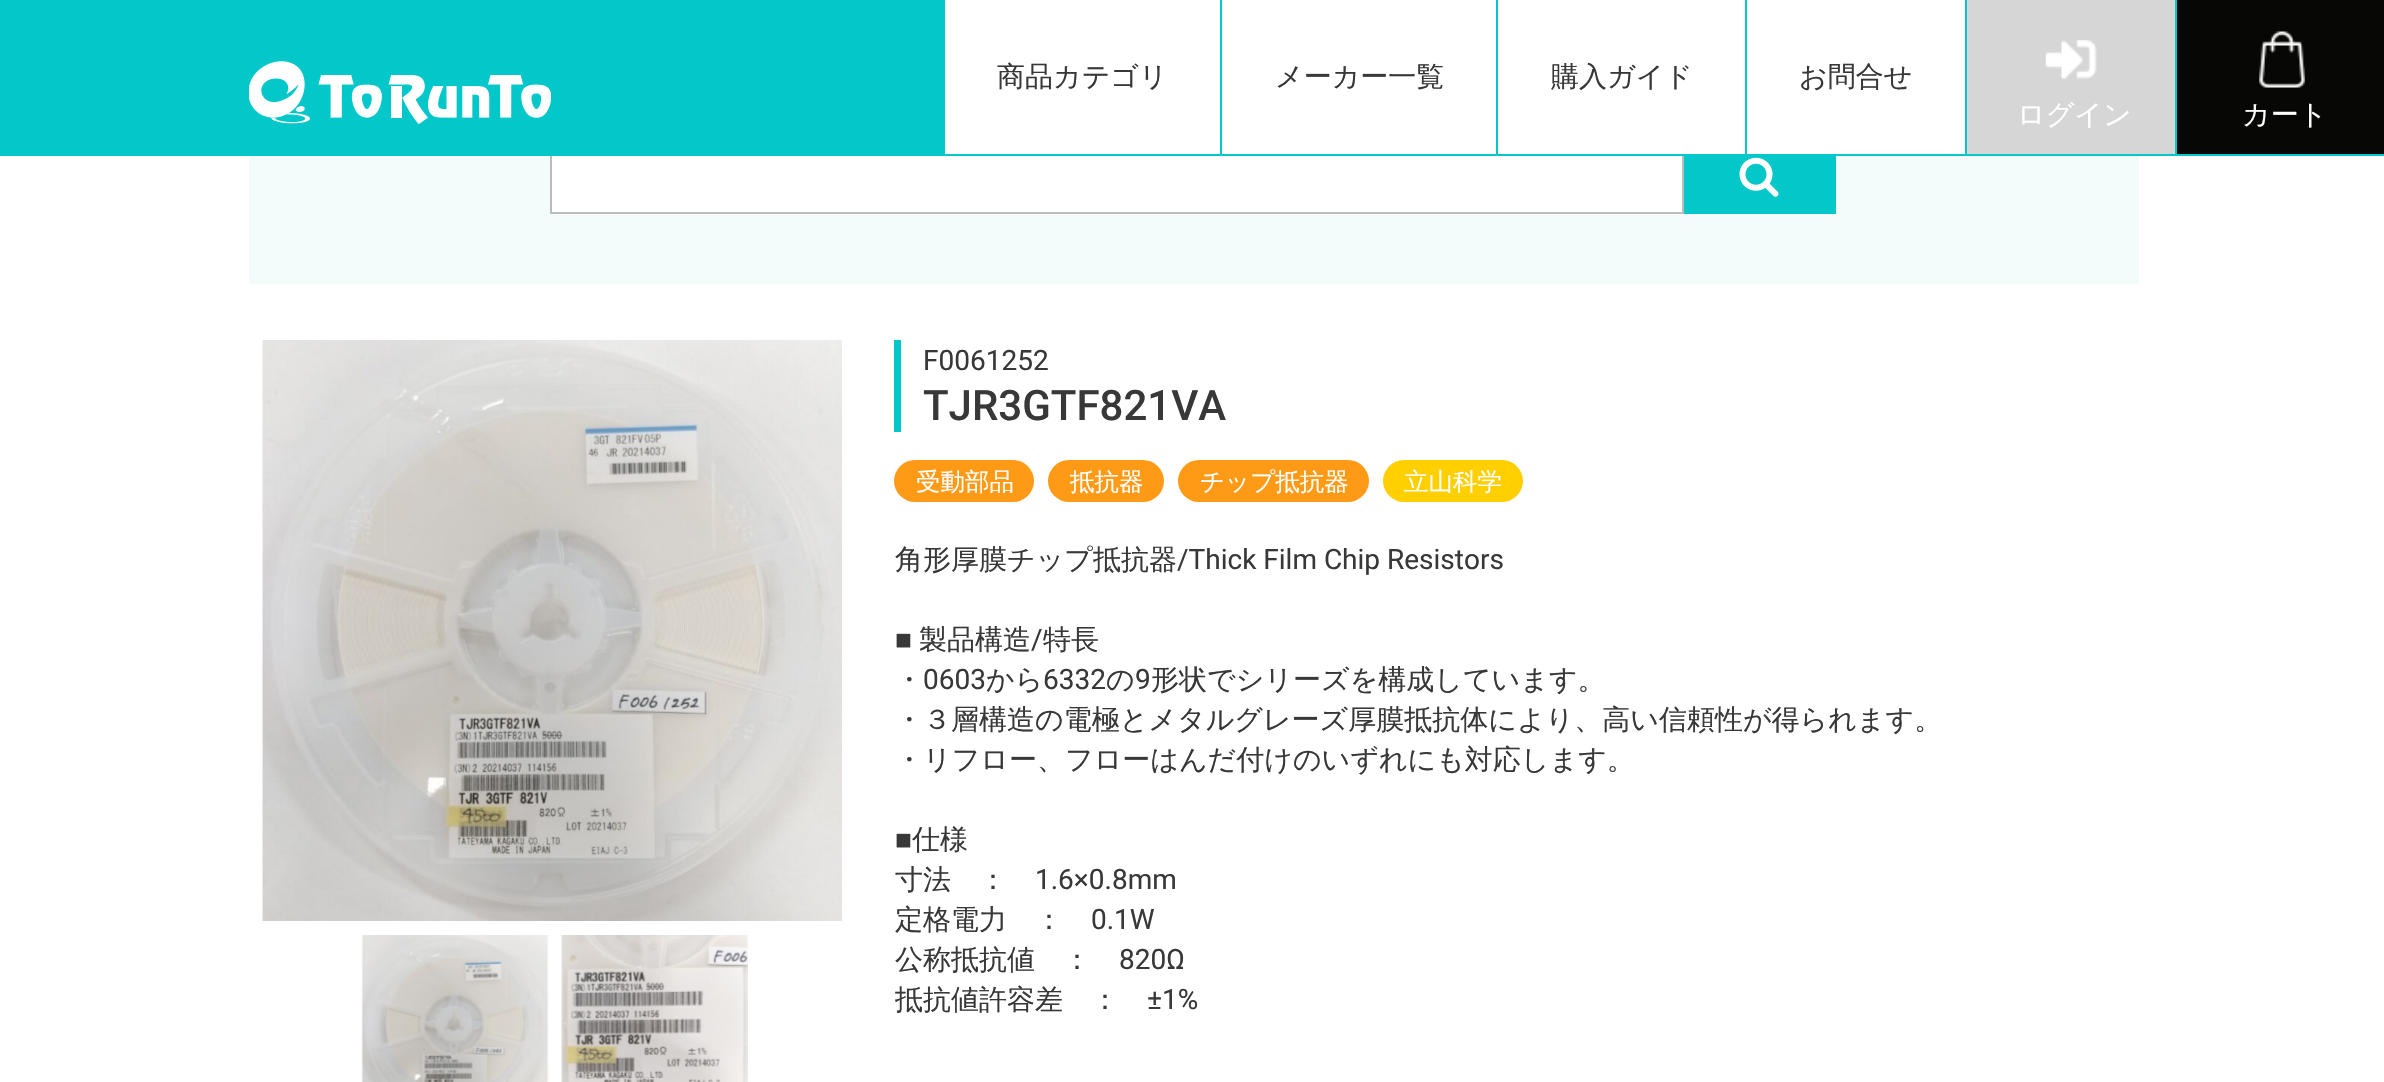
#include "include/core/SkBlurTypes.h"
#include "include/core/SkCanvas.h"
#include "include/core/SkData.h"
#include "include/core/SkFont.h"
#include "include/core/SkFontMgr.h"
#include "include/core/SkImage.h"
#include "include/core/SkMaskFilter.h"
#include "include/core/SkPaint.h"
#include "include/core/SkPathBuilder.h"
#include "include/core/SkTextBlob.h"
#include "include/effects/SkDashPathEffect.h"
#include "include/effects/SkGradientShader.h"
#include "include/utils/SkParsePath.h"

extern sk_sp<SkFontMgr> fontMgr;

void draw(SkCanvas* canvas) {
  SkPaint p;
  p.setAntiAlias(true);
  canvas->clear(SK_ColorWHITE);
  p.setColor(SkColorSetRGB(243, 251, 251));
  canvas->drawRect(SkRect::MakeLTRB(249, 156, 2139, 284), p);
  p.setColor(SK_ColorWHITE);
  canvas->drawRect(SkRect::MakeLTRB(552, 156, 1682, 212), p);
  p.setStyle(SkPaint::kStroke_Style);
  p.setStrokeWidth(2);
  p.setColor(SkColorSetRGB(187, 187, 187));
  canvas->drawRect(SkRect::MakeLTRB(551, 138, 1683, 213), p);
  p.setStyle(SkPaint::kFill_Style);
  p.setColor(SkColorSetRGB(3, 199, 201));
  canvas->drawRect(SkRect::MakeLTRB(0, 0, 943, 156), p);
  canvas->drawImageRect(SkImages::DeferredFromEncodedData(SkData::MakeFromFileName("images/1.png")), SkRect::MakeLTRB(249, 61, 551, 124), SkSamplingOptions());
  p.setColor(SK_ColorWHITE);
  canvas->drawRect(SkRect::MakeLTRB(945, 137, 1220, 139), p);
  p.setColor(SkColorSetRGB(3, 199, 201));
  canvas->drawRect(SkRect::MakeLTRB(943, 154, 2384, 156), p);
  canvas->drawRect(SkRect::MakeLTRB(943, 0, 945, 156), p);
  p.setColor(SK_ColorWHITE);
  canvas->drawRect(SkRect::MakeLTRB(1222, 137, 1496, 139), p);
  p.setColor(SkColorSetRGB(3, 199, 201));
  canvas->drawRect(SkRect::MakeLTRB(1220, 0, 1222, 156), p);
  p.setColor(SK_ColorWHITE);
  canvas->drawRect(SkRect::MakeLTRB(1498, 137, 1684, 154), p);
  p.setColor(SkColorSetRGB(3, 199, 201));
  canvas->drawRect(SkRect::MakeLTRB(1496, 0, 1498, 156), p);
  canvas->drawRect(SkRect::MakeLTRB(1745, 0, 1747, 156), p);
  p.setColor(SkColorSetRGB(214, 214, 214));
  canvas->drawRect(SkRect::MakeLTRB(1967, 0, 2175, 154), p);
  canvas->drawImageRect(SkImages::DeferredFromEncodedData(SkData::MakeFromFileName("images/2.png")), SkRect::MakeLTRB(2045, 40, 2097, 79), SkSamplingOptions());
  p.setColor(SkColorSetRGB(3, 199, 201));
  canvas->drawRect(SkRect::MakeLTRB(1965, 0, 1967, 156), p);
  p.setColor(SkColorSetRGB(7, 7, 5));
  canvas->drawRect(SkRect::MakeLTRB(2177, 0, 2384, 154), p);
  canvas->drawImageRect(SkImages::DeferredFromEncodedData(SkData::MakeFromFileName("images/3.png")), SkRect::MakeLTRB(2259, 31, 2305, 88), SkSamplingOptions());
  p.setColor(SkColorSetRGB(3, 199, 201));
  canvas->drawRect(SkRect::MakeLTRB(2175, 0, 2177, 156), p);
  canvas->drawRect(SkRect::MakeLTRB(1684, 156, 1836, 214), p);
  canvas->drawImageRect(SkImages::DeferredFromEncodedData(SkData::MakeFromFileName("images/4.png")), SkRect::MakeLTRB(1739, 157, 1779, 197), SkSamplingOptions());
  canvas->drawImageRect(SkImages::DeferredFromEncodedData(SkData::MakeFromFileName("images/5.png")), SkRect::MakeLTRB(261, 340, 842, 921), SkSamplingOptions());
  canvas->drawImageRect(SkImages::DeferredFromEncodedData(SkData::MakeFromFileName("images/6.png")), SkRect::MakeLTRB(361, 935, 549, 1082), SkSamplingOptions());
  canvas->drawImageRect(SkImages::DeferredFromEncodedData(SkData::MakeFromFileName("images/7.png")), SkRect::MakeLTRB(561, 935, 748, 1082), SkSamplingOptions());
  canvas->drawRect(SkRect::MakeLTRB(894, 340, 901, 432), p);
  p.setColor(SkColorSetRGB(255, 154, 22));
  canvas->drawRoundRect(SkRect::MakeLTRB(894, 460, 1034, 502), 21, 21, p);
  canvas->drawRoundRect(SkRect::MakeLTRB(1048, 460, 1164, 502), 21, 21, p);
  canvas->drawRoundRect(SkRect::MakeLTRB(1178, 460, 1369, 502), 21, 21, p);
  p.setColor(SkColorSetRGB(255, 207, 0));
  canvas->drawRoundRect(SkRect::MakeLTRB(1383, 460, 1523, 502), 21, 21, p);
  SkFont font1(fontMgr->matchFamilyStyle("WenQuanYi Zen Hei", SkFontStyle(500, SkFontStyle::kNormal_Width, SkFontStyle::kUpright_Slant)), 28);
  font1.setSubpixel(true);
  p.setColor(SkColorSetRGB(56, 56, 56));
  canvas->drawString("商品カテゴリ", 997, 86, font1, p);
  canvas->drawString("メーカー一覧", 1275, 86, font1, p);
  canvas->drawString("購入ガイド", 1551, 86, font1, p);
  canvas->drawString("お問合せ", 1799, 86, font1, p);
  p.setColor(SK_ColorWHITE);
  canvas->drawString("ログイン", 2017, 124, font1, p);
  canvas->drawString("カート", 2242, 124, font1, p);
  SkFont font2(fontMgr->matchFamilyStyle("Roboto", SkFontStyle::Normal()), 28);
  font2.setSubpixel(true);
  p.setColor(SkColorSetRGB(56, 56, 56));
  canvas->drawString("F0061252", 923, 370, font2, p);
  SkFont font3(fontMgr->matchFamilyStyle("Roboto", SkFontStyle(500, SkFontStyle::kNormal_Width, SkFontStyle::kUpright_Slant)), 42);
  font3.setSubpixel(true);
  canvas->drawString("TJR3GTF821VA", 923, 420, font3, p);
  SkFont font4(fontMgr->matchFamilyStyle("WenQuanYi Zen Hei", SkFontStyle(500, SkFontStyle::kNormal_Width, SkFontStyle::kUpright_Slant)), 24.5f);
  font4.setSubpixel(true);
  p.setColor(SK_ColorWHITE);
  canvas->drawString("受動部品", 916, 490, font4, p);
  canvas->drawString("抵抗器", 1070, 490, font4, p);
  canvas->drawString("チップ抵抗器", 1200, 490, font4, p);
  canvas->drawString("立山科学", 1404, 490, font4, p);
  p.setColor(SkColorSetRGB(56, 56, 56));
  canvas->drawString("角形厚膜チップ抵抗器", 895, 569, font1, p);
  canvas->drawString("/Thick Film Chip Resistors", 1177, 569, font2, p);
  SkFont font5(fontMgr->matchFamilyStyle("Liberation Sans", SkFontStyle::Normal()), 28);
  font5.setSubpixel(true);
  canvas->drawString("■", 895, 649, font5, p);
  canvas->drawString("製品構造", 919, 649, font1, p);
  canvas->drawString("/", 1031, 649, font2, p);
  canvas->drawString("特長", 1043, 649, font1, p);
  canvas->drawString("・", 895, 689, font1, p);
  canvas->drawString("0603", 923, 689, font2, p);
  canvas->drawString("から", 986, 689, font1, p);
  canvas->drawString("6332", 1043, 689, font2, p);
  canvas->drawString("の", 1106, 689, font1, p);
  canvas->drawString("9", 1135, 689, font2, p);
  canvas->drawString("形状でシリーズを構成しています。", 1151, 689, font1, p);
  canvas->drawString("・３層構造の電極とメタルグレーズ厚膜抵抗体により、高い信頼性が得られます。", 895, 729, font1, p);
  canvas->drawString("・リフロー、フローはんだ付けのいずれにも対応します。", 895, 769, font1, p);
  canvas->drawString("■", 895, 849, font5, p);
  canvas->drawString("仕様", 912, 849, font1, p);
  canvas->drawString("寸法　：", 895, 889, font1, p);
  canvas->drawString("1.6×0.8mm", 1035, 889, font2, p);
  canvas->drawString("定格電力　：", 895, 929, font1, p);
  canvas->drawString("0.1W", 1091, 929, font2, p);
  canvas->drawString("公称抵抗値　：", 895, 969, font1, p);
  canvas->drawString("820Ω", 1119, 969, font2, p);
  canvas->drawString("抵抗値許容差　：", 895, 1009, font1, p);
  canvas->drawString("±1%", 1147, 1009, font2, p);
}
